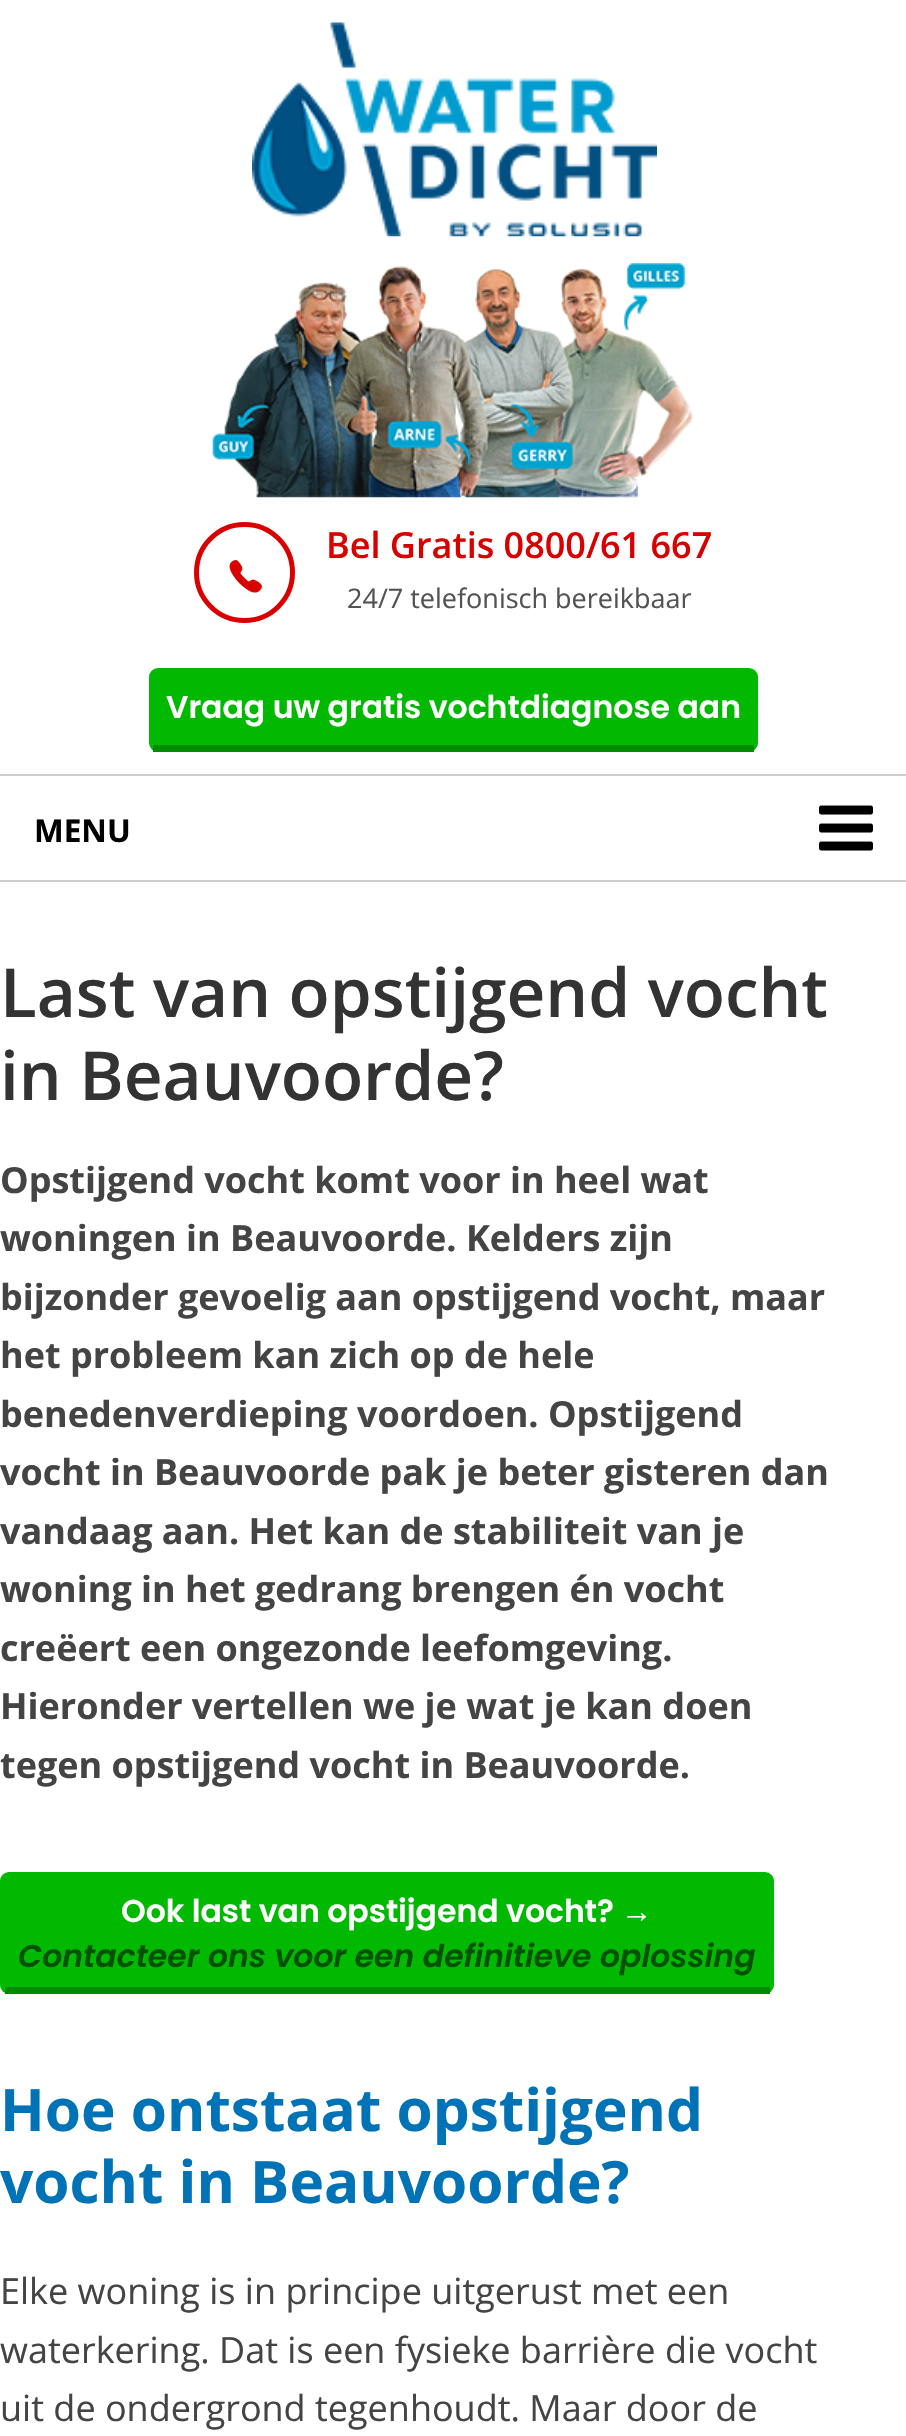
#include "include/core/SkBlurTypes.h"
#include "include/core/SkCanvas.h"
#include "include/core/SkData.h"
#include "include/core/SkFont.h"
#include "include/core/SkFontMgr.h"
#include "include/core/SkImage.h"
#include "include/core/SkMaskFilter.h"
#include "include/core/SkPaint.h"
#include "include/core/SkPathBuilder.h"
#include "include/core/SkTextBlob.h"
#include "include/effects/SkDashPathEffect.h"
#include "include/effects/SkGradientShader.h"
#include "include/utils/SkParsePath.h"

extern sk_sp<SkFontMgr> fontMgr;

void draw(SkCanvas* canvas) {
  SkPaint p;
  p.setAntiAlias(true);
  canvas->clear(SK_ColorWHITE);
  canvas->drawImageRect(SkImages::DeferredFromEncodedData(SkData::MakeFromFileName("images/1.png")), SkRect::MakeLTRB(252, 22, 657, 237), SkSamplingOptions());
  canvas->drawImageRect(SkImages::DeferredFromEncodedData(SkData::MakeFromFileName("images/2.png")), SkRect::MakeLTRB(212, 263, 693, 498), SkSamplingOptions());
  p.setStyle(SkPaint::kStroke_Style);
  p.setStrokeWidth(5);
  p.setColor(SkColorSetRGB(217, 0, 0));
  canvas->drawCircle(244.5f, 572.5f, 48, p);
  canvas->drawImageRect(SkImages::DeferredFromEncodedData(SkData::MakeFromFileName("images/3.png")), SkRect::MakeLTRB(229, 560, 262, 593), SkSamplingOptions());
  p.setStyle(SkPaint::kFill_Style);
  p.setColor(SkColorSetRGB(0, 185, 0));
  canvas->drawRoundRect(SkRect::MakeLTRB(149, 668, 758, 752), 9, 9, p);
  p.setColor(SkColorSetRGB(0, 140, 0));
  canvas->drawRect(SkRect::MakeLTRB(153, 745, 754, 752), p);
  p.setColor(SkColorSetRGB(204, 204, 204));
  canvas->drawRect(SkRect::MakeLTRB(0, 774, 906, 776), p);
  canvas->drawRect(SkRect::MakeLTRB(0, 880, 906, 882), p);
  canvas->drawImageRect(SkImages::DeferredFromEncodedData(SkData::MakeFromFileName("images/4.png")), SkRect::MakeLTRB(819, 805, 873, 851), SkSamplingOptions());
  p.setColor(SkColorSetRGB(0, 185, 0));
  canvas->drawRoundRect(SkRect::MakeLTRB(0, 1872, 774, 1994), 9, 9, p);
  p.setColor(SkColorSetRGB(0, 140, 0));
  canvas->drawRect(SkRect::MakeLTRB(5, 1987, 770, 1994), p);
  SkFont font1(fontMgr->matchFamilyStyle("Open Sans", SkFontStyle(600, SkFontStyle::kNormal_Width, SkFontStyle::kUpright_Slant)), 36);
  font1.setSubpixel(true);
  p.setColor(SkColorSetRGB(217, 0, 0));
  canvas->drawString("Bel Gratis 0800/61 667", 326, 558, font1, p);
  SkFont font2(fontMgr->matchFamilyStyle("Open Sans", SkFontStyle::Normal()), 27);
  font2.setSubpixel(true);
  p.setColor(SkColorSetRGB(83, 83, 83));
  canvas->drawString("24/7 telefonisch bereikbaar", 347, 608, font2, p);
  SkFont font3(fontMgr->matchFamilyStyle("Poppins", SkFontStyle(600, SkFontStyle::kNormal_Width, SkFontStyle::kUpright_Slant)), 31.5f);
  font3.setSubpixel(true);
  p.setColor(SK_ColorWHITE);
  canvas->drawString("Vraag uw gratis vochtdiagnose aan", 166, 718, font3, p);
  SkFont font4(fontMgr->matchFamilyStyle("Open Sans", SkFontStyle::Bold()), 31.5f);
  font4.setSubpixel(true);
  p.setColor(SK_ColorBLACK);
  canvas->drawString("MENU", 34, 842, font4, p);
  SkFont font5(fontMgr->matchFamilyStyle("Open Sans", SkFontStyle(600, SkFontStyle::kNormal_Width, SkFontStyle::kUpright_Slant)), 67.5f);
  font5.setSubpixel(true);
  p.setColor(SkColorSetRGB(51, 51, 51));
  canvas->drawString("Last van opstijgend vocht", 0, 1017, font5, p);
  canvas->drawString("in Beauvoorde?", 0, 1100, font5, p);
  SkFont font6(fontMgr->matchFamilyStyle("Open Sans", SkFontStyle::Bold()), 36);
  font6.setSubpixel(true);
  p.setColor(SkColorSetRGB(68, 68, 68));
  canvas->drawString("Opstijgend vocht komt voor in heel wat", 0, 1193, font6, p);
  canvas->drawString("woningen in Beauvoorde. Kelders zijn", 0, 1251, font6, p);
  canvas->drawString("bijzonder gevoelig aan opstijgend vocht, maar", 0, 1310, font6, p);
  canvas->drawString("het probleem kan zich op de hele", 0, 1368, font6, p);
  canvas->drawString("benedenverdieping voordoen. Opstijgend", 0, 1427, font6, p);
  canvas->drawString("vocht in Beauvoorde pak je beter gisteren dan", 0, 1485, font6, p);
  canvas->drawString("vandaag aan. Het kan de stabiliteit van je", 0, 1544, font6, p);
  canvas->drawString("woning in het gedrang brengen én vocht", 0, 1602, font6, p);
  canvas->drawString("creëert een ongezonde leefomgeving.", 0, 1661, font6, p);
  canvas->drawString("Hieronder vertellen we je wat je kan doen", 0, 1719, font6, p);
  canvas->drawString("tegen opstijgend vocht in Beauvoorde.", 0, 1778, font6, p);
  p.setColor(SK_ColorWHITE);
  canvas->drawString("Ook last van opstijgend vocht?", 121, 1922, font3, p);
  SkFont font7(fontMgr->matchFamilyStyle("Liberation Sans", SkFontStyle::Bold()), 31.5f);
  font7.setSubpixel(true);
  canvas->drawString("→", 621, 1922, font7, p);
  SkFont font8(fontMgr->matchFamilyStyle("Poppins", SkFontStyle(600, SkFontStyle::kNormal_Width, SkFontStyle::kItalic_Slant)), 31.5f);
  font8.setSubpixel(true);
  p.setColor(SkColorSetRGB(0, 81, 0));
  canvas->drawString("Contacteer ons voor een definitieve oplossing", 18, 1967, font8, p);
  SkFont font9(fontMgr->matchFamilyStyle("Open Sans", SkFontStyle::Bold()), 58.5f);
  font9.setSubpixel(true);
  p.setColor(SkColorSetRGB(0, 114, 182));
  canvas->drawString("Hoe ontstaat opstijgend", 0, 2131, font9, p);
  canvas->drawString("vocht in Beauvoorde?", 0, 2203, font9, p);
  SkFont font10(fontMgr->matchFamilyStyle("Open Sans", SkFontStyle::Normal()), 36);
  font10.setSubpixel(true);
  p.setColor(SkColorSetRGB(68, 68, 68));
  canvas->drawString("Elke woning is in principe uitgerust met een", 0, 2304, font10, p);
  canvas->drawString("waterkering. Dat is een fysieke barrière die vocht", 0, 2363, font10, p);
  canvas->drawString("uit de ondergrond tegenhoudt. Maar door de", 0, 2421, font10, p);
}
